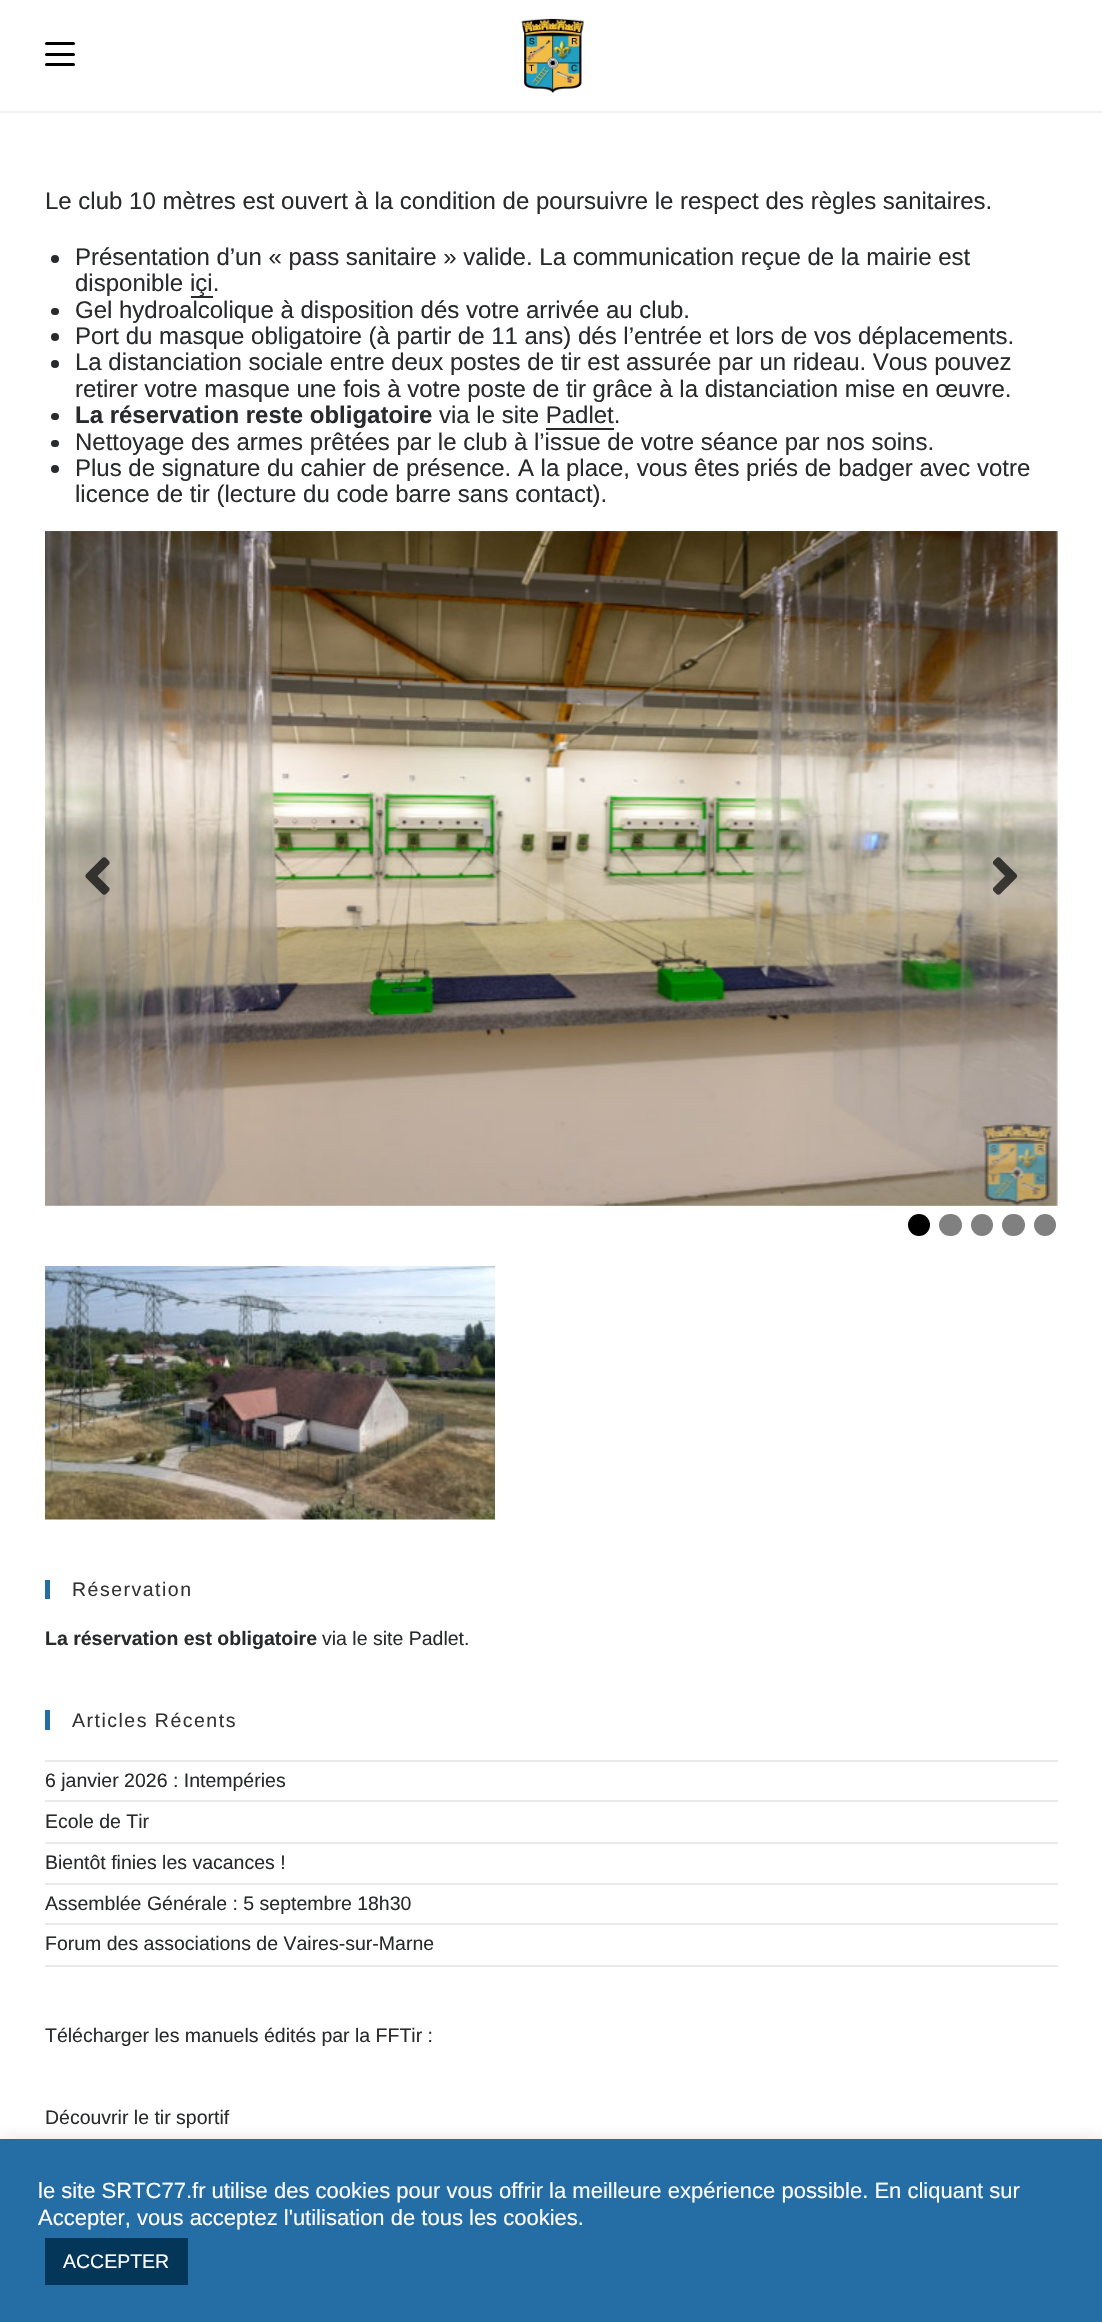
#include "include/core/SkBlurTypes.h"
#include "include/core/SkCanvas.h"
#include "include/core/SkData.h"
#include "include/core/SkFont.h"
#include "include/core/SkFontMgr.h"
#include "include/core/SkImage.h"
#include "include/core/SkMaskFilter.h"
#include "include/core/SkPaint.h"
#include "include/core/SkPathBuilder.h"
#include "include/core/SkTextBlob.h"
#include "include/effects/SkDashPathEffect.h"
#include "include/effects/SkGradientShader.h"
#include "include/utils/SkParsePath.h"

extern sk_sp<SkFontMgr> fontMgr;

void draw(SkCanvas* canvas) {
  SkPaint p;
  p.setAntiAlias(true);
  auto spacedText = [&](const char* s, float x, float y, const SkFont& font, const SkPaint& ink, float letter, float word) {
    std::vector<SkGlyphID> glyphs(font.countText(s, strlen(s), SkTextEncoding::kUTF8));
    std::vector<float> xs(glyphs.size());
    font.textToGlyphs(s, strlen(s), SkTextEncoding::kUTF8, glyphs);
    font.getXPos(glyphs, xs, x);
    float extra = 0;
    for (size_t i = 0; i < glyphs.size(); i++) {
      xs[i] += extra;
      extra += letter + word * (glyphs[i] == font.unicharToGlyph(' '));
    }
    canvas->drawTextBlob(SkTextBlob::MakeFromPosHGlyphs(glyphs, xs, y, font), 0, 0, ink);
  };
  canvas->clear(SK_ColorWHITE);
  p.setColor(SkColorSetRGB(241, 241, 241));
  canvas->drawRect(SkRect::MakeLTRB(0, 111, 1102, 113), p);
  p.setColor(SK_ColorBLACK);
  canvas->drawRoundRect(SkRect::MakeLTRB(45, 53, 75, 56), 1.5f, 1.5f, p);
  canvas->drawRoundRect(SkRect::MakeLTRB(45, 42, 75, 45), 1.5f, 1.5f, p);
  canvas->drawRoundRect(SkRect::MakeLTRB(45, 63, 75, 66), 1.5f, 1.5f, p);
  canvas->drawImageRect(SkImages::DeferredFromEncodedData(SkData::MakeFromFileName("images/1.png")), SkRect::MakeLTRB(521, 18, 585, 93), SkSamplingOptions());
  p.setColor(SkColorSetRGB(40, 42, 43));
  canvas->drawCircle(55, 259, 4, p);
  canvas->drawRect(SkRect::MakeLTRB(191, 296, 213, 298), p);
  canvas->drawRoundRect(SkRect::MakeLTRB(51, 308, 59, 315), 3.5f, 3.5f, p);
  canvas->drawCircle(55, 337, 4, p);
  canvas->drawCircle(55, 364, 4, p);
  canvas->drawRoundRect(SkRect::MakeLTRB(51, 413, 59, 420), 3.5f, 3.5f, p);
  canvas->drawRect(SkRect::MakeLTRB(546, 428, 614, 430), p);
  canvas->drawRoundRect(SkRect::MakeLTRB(51, 440, 59, 447), 3.5f, 3.5f, p);
  canvas->drawCircle(55, 469, 4, p);
  canvas->drawImageRect(SkImages::DeferredFromEncodedData(SkData::MakeFromFileName("images/2.png")), SkRect::MakeLTRB(45, 531, 1058, 1206), SkSamplingOptions());
  canvas->drawImageRect(SkImages::DeferredFromEncodedData(SkData::MakeFromFileName("images/3.png")), SkRect::MakeLTRB(85, 857, 110, 895), SkSamplingOptions());
  canvas->drawImageRect(SkImages::DeferredFromEncodedData(SkData::MakeFromFileName("images/4.png")), SkRect::MakeLTRB(992, 857, 1018, 895), SkSamplingOptions());
  p.setColor(SK_ColorBLACK);
  canvas->drawCircle(919, 1225, 11, p);
  p.setColor(SkColorSetRGB(128, 128, 128));
  canvas->drawRoundRect(SkRect::MakeLTRB(939, 1214, 962, 1236), 11, 11, p);
  canvas->drawCircle(982, 1225, 11, p);
  canvas->drawRoundRect(SkRect::MakeLTRB(1002, 1214, 1025, 1236), 11, 11, p);
  canvas->drawCircle(1045, 1225, 11, p);
  canvas->drawImageRect(SkImages::DeferredFromEncodedData(SkData::MakeFromFileName("images/5.png")), SkRect::MakeLTRB(45, 1266, 495, 1520), SkSamplingOptions());
  p.setColor(SkColorSetRGB(36, 109, 165));
  canvas->drawRect(SkRect::MakeLTRB(45, 1580, 50, 1599), p);
  canvas->drawRect(SkRect::MakeLTRB(45, 1710, 50, 1730), p);
  p.setColor(SkColorSetRGB(233, 233, 233));
  canvas->drawRect(SkRect::MakeLTRB(45, 1760, 1058, 1762), p);
  canvas->drawRect(SkRect::MakeLTRB(45, 1800, 1058, 1802), p);
  canvas->drawRect(SkRect::MakeLTRB(45, 1842, 1058, 1844), p);
  canvas->drawRect(SkRect::MakeLTRB(45, 1883, 1058, 1885), p);
  canvas->drawRect(SkRect::MakeLTRB(45, 1923, 1058, 1925), p);
  canvas->drawRect(SkRect::MakeLTRB(45, 1965, 1058, 1967), p);
  p.setColor(SkColorSetARGB(77, 172, 171, 171));
  p.setMaskFilter(SkMaskFilter::MakeBlur(kNormal_SkBlurStyle, 7.5f));
  canvas->drawRect(SkRect::MakeLTRB(0, 2138, 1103, 2321), p);
  p.setMaskFilter(nullptr);
  p.setColor(SkColorSetRGB(36, 109, 165));
  canvas->drawRect(SkRect::MakeLTRB(0, 2139, 1102, 2322), p);
  p.setColor(SkColorSetRGB(3, 54, 89));
  canvas->drawRect(SkRect::MakeLTRB(45, 2238, 188, 2285), p);
  SkFont font1(fontMgr->matchFamilyStyle("Liberation Sans", SkFontStyle::Normal()), 24);
  font1.setSubpixel(true);
  p.setColor(SkColorSetRGB(40, 42, 43));
  canvas->drawString("Le club 10 mètres est ouvert à la condition de poursuivre le respect des règles sanitaires.", 45, 209, font1, p);
  canvas->drawString("Présentation d’un « pass sanitaire » valide. La communication reçue de la mairie est", 75, 265, font1, p);
  canvas->drawString("disponible", 75, 291, font1, p);
  canvas->drawString("içi.", 190, 291, font1, p);
  canvas->drawString("Gel hydroalcolique à disposition dés votre arrivée au club.", 75, 318, font1, p);
  canvas->drawString("Port du masque obligatoire (à partir de 11 ans) dés l’entrée et lors de vos déplacements.", 75, 344, font1, p);
  canvas->drawString("La distanciation sociale entre deux postes de tir est assurée par un rideau. Vous pouvez", 75, 370, font1, p);
  canvas->drawString("retirer votre masque une fois à votre poste de tir grâce à la distanciation mise en œuvre.", 75, 397, font1, p);
  SkFont font2(fontMgr->matchFamilyStyle("Liberation Sans", SkFontStyle::Bold()), 24);
  font2.setSubpixel(true);
  canvas->drawString("La réservation reste obligatoire", 75, 423, font2, p);
  canvas->drawString("via le site Padlet.", 439, 423, font1, p);
  canvas->drawString("Nettoyage des armes prêtées par le club à l’issue de votre séance par nos soins.", 75, 450, font1, p);
  canvas->drawString("Plus de signature du cahier de présence. A la place, vous êtes priés de badger avec votre", 75, 476, font1, p);
  canvas->drawString("licence de tir (lecture du code barre sans contact).", 75, 502, font1, p);
  SkFont font3(fontMgr->matchFamilyStyle("Liberation Sans", SkFontStyle::Normal()), 19.5f);
  font3.setSubpixel(true);
  p.setColor(SkColorSetRGB(51, 51, 51));
  spacedText("Réservation", 72, 1596, font3, p, 1.5f, 0);
  SkFont font4(fontMgr->matchFamilyStyle("Liberation Sans", SkFontStyle::Bold()), 19.5f);
  font4.setSubpixel(true);
  p.setColor(SkColorSetRGB(40, 42, 43));
  canvas->drawString("La réservation est obligatoire", 45, 1645, font4, p);
  canvas->drawString("via le site Padlet.", 322, 1645, font3, p);
  p.setColor(SkColorSetRGB(51, 51, 51));
  spacedText("Articles Récents", 72, 1727, font3, p, 1.5f, 0);
  p.setColor(SkColorSetRGB(40, 42, 43));
  canvas->drawString("6 janvier 2026 : Intempéries", 45, 1787, font3, p);
  canvas->drawString("Ecole de Tir", 45, 1828, font3, p);
  canvas->drawString("Bientôt finies les vacances !", 45, 1869, font3, p);
  canvas->drawString("Assemblée Générale : 5 septembre 18h30", 45, 1910, font3, p);
  canvas->drawString("Forum des associations de Vaires-sur-Marne", 45, 1950, font3, p);
  canvas->drawString("Télécharger les manuels édités par la FFTir :", 45, 2042, font3, p);
  canvas->drawString("Découvrir le tir sportif", 45, 2124, font3, p);
  SkFont font5(fontMgr->matchFamilyStyle("Liberation Sans", SkFontStyle::Normal()), 22);
  font5.setSubpixel(true);
  p.setColor(SK_ColorWHITE);
  canvas->drawString("le site SRTC77.fr utilise des cookies pour vous offrir la meilleure expérience possible. En cliquant sur", 38, 2198, font5, p);
  canvas->drawString("Accepter, vous acceptez l'utilisation de tous les cookies.", 38, 2225, font5, p);
  canvas->drawString("ACCEPTER", 63, 2268, font3, p);
}
